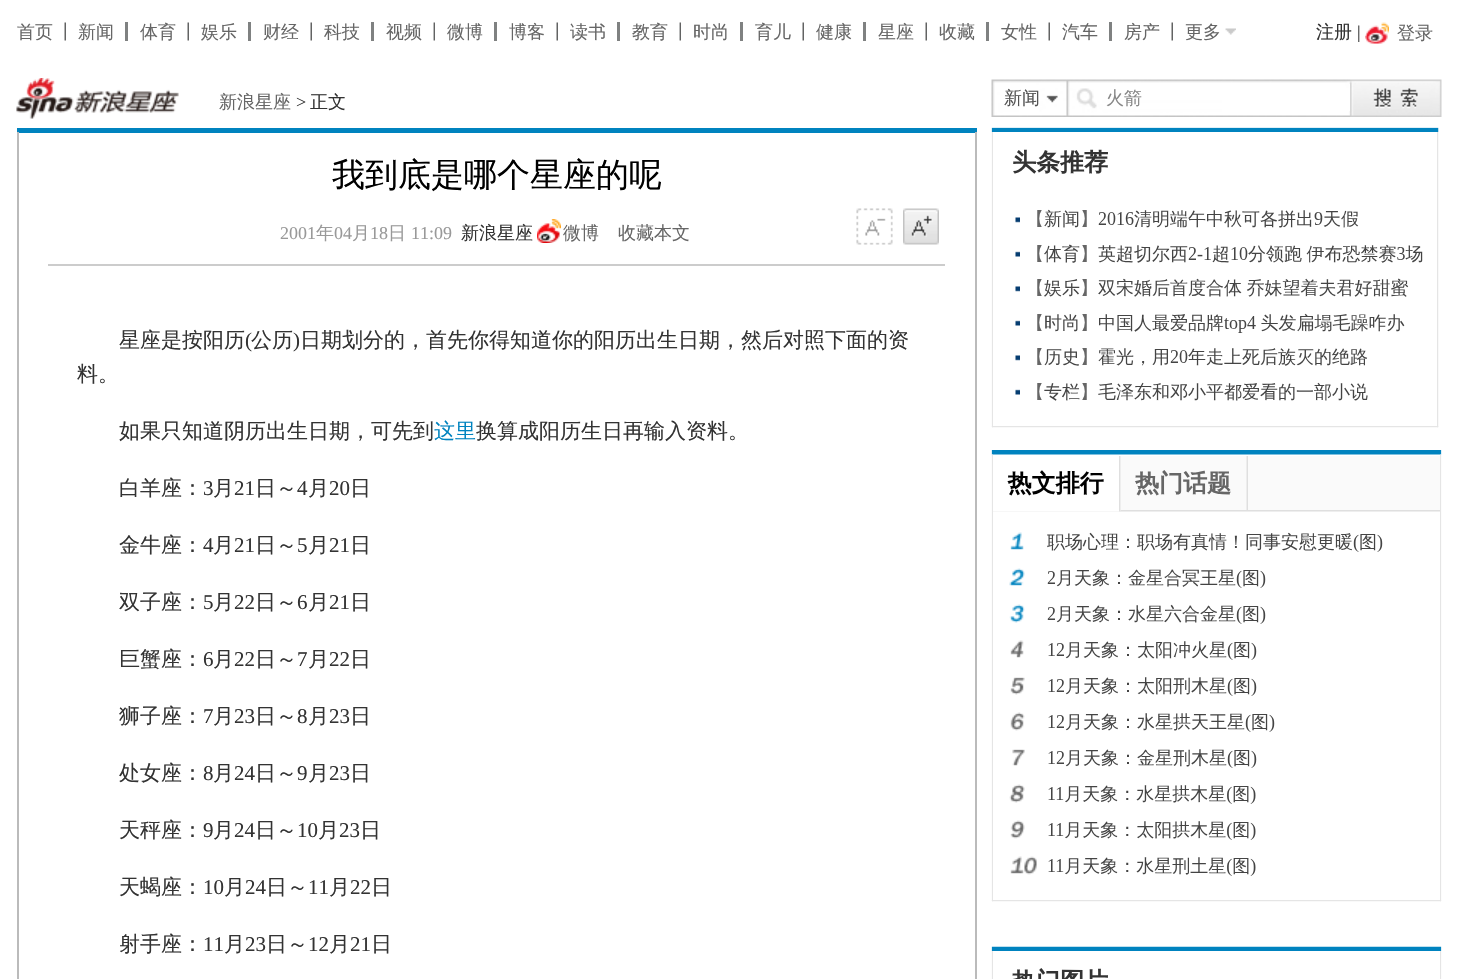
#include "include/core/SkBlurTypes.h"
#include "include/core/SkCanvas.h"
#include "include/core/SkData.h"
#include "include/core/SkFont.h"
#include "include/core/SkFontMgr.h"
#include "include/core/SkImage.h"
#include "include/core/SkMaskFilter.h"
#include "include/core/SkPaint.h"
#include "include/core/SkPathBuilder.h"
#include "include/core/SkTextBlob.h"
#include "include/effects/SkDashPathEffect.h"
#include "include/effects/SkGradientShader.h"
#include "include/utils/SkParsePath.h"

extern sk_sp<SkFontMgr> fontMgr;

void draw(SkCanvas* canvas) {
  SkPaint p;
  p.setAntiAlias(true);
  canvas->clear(SK_ColorWHITE);
  canvas->drawImageRect(SkImages::DeferredFromEncodedData(SkData::MakeFromFileName("images/1.png")), SkRect::MakeLTRB(64, 22, 66, 41), SkSamplingOptions());
  p.setColor(SkColorSetRGB(127, 129, 129));
  canvas->drawRect(SkRect::MakeLTRB(125, 22, 128, 41), p);
  canvas->drawImageRect(SkImages::DeferredFromEncodedData(SkData::MakeFromFileName("images/1.png")), SkRect::MakeLTRB(187, 22, 189, 41), SkSamplingOptions());
  canvas->drawRect(SkRect::MakeLTRB(248, 22, 251, 41), p);
  canvas->drawImageRect(SkImages::DeferredFromEncodedData(SkData::MakeFromFileName("images/1.png")), SkRect::MakeLTRB(310, 22, 312, 41), SkSamplingOptions());
  canvas->drawRect(SkRect::MakeLTRB(371, 22, 374, 41), p);
  canvas->drawImageRect(SkImages::DeferredFromEncodedData(SkData::MakeFromFileName("images/2.png")), SkRect::MakeLTRB(433, 22, 435, 41), SkSamplingOptions());
  canvas->drawRect(SkRect::MakeLTRB(494, 22, 497, 41), p);
  canvas->drawImageRect(SkImages::DeferredFromEncodedData(SkData::MakeFromFileName("images/1.png")), SkRect::MakeLTRB(556, 22, 558, 41), SkSamplingOptions());
  canvas->drawRect(SkRect::MakeLTRB(617, 22, 620, 41), p);
  canvas->drawImageRect(SkImages::DeferredFromEncodedData(SkData::MakeFromFileName("images/2.png")), SkRect::MakeLTRB(679, 22, 681, 41), SkSamplingOptions());
  canvas->drawRect(SkRect::MakeLTRB(740, 22, 743, 41), p);
  canvas->drawImageRect(SkImages::DeferredFromEncodedData(SkData::MakeFromFileName("images/1.png")), SkRect::MakeLTRB(802, 22, 804, 41), SkSamplingOptions());
  canvas->drawRect(SkRect::MakeLTRB(863, 22, 866, 41), p);
  canvas->drawImageRect(SkImages::DeferredFromEncodedData(SkData::MakeFromFileName("images/1.png")), SkRect::MakeLTRB(925, 22, 927, 41), SkSamplingOptions());
  canvas->drawRect(SkRect::MakeLTRB(986, 22, 989, 41), p);
  canvas->drawImageRect(SkImages::DeferredFromEncodedData(SkData::MakeFromFileName("images/1.png")), SkRect::MakeLTRB(1048, 22, 1050, 41), SkSamplingOptions());
  canvas->drawRect(SkRect::MakeLTRB(1109, 22, 1112, 41), p);
  canvas->drawImageRect(SkImages::DeferredFromEncodedData(SkData::MakeFromFileName("images/1.png")), SkRect::MakeLTRB(1171, 22, 1173, 41), SkSamplingOptions());
  canvas->drawImageRect(SkImages::DeferredFromEncodedData(SkData::MakeFromFileName("images/3.png")), SkRect::MakeLTRB(1225, 28, 1236, 35), SkSamplingOptions());
  canvas->drawImageRect(SkImages::DeferredFromEncodedData(SkData::MakeFromFileName("images/4.png")), SkRect::MakeLTRB(1365, 22, 1389, 44), SkSamplingOptions());
  canvas->drawImageRect(SkImages::DeferredFromEncodedData(SkData::MakeFromFileName("images/5.png")), SkRect::MakeLTRB(16, 78, 179, 119), SkSamplingOptions());
  canvas->drawImageRect(SkImages::DeferredFromEncodedData(SkData::MakeFromFileName("images/6.png")), SkRect::MakeLTRB(991, 79, 1442, 117), SkSamplingOptions());
  p.setColor(SK_ColorWHITE);
  canvas->drawRect(SkRect::MakeLTRB(1349, 84, 1350, 111), p);
  p.setColor(SkColorSetRGB(0, 131, 191));
  canvas->drawRect(SkRect::MakeLTRB(17, 128, 977, 133), p);
  p.setColor(SkColorSetRGB(187, 187, 187));
  canvas->drawRect(SkRect::MakeLTRB(975, 132, 977, 979), p);
  canvas->drawRect(SkRect::MakeLTRB(17, 132, 19, 979), p);
  p.setColor(SkColorSetRGB(204, 204, 204));
  canvas->drawRect(SkRect::MakeLTRB(48, 264, 945, 266), p);
  canvas->drawImageRect(SkImages::DeferredFromEncodedData(SkData::MakeFromFileName("images/7.png")), SkRect::MakeLTRB(537, 219, 561, 243), SkSamplingOptions());
  canvas->drawImageRect(SkImages::DeferredFromEncodedData(SkData::MakeFromFileName("images/8.png")), SkRect::MakeLTRB(856, 208, 893, 245), SkSamplingOptions());
  canvas->drawImageRect(SkImages::DeferredFromEncodedData(SkData::MakeFromFileName("images/9.png")), SkRect::MakeLTRB(903, 208, 939, 245), SkSamplingOptions());
  canvas->drawImageRect(SkImages::DeferredFromEncodedData(SkData::MakeFromFileName("images/10.png")), SkRect::MakeLTRB(991, 127, 1439, 428), SkSamplingOptions());
  canvas->drawImageRect(SkImages::DeferredFromEncodedData(SkData::MakeFromFileName("images/11.png")), SkRect::MakeLTRB(991, 450, 1442, 902), SkSamplingOptions());
  canvas->drawImageRect(SkImages::DeferredFromEncodedData(SkData::MakeFromFileName("images/12.png")), SkRect::MakeLTRB(991, 946, 1442, 979), SkSamplingOptions());
  SkFont font1(fontMgr->matchFamilyStyle("WenQuanYi Zen Hei", SkFontStyle(500, SkFontStyle::kNormal_Width, SkFontStyle::kUpright_Slant)), 18);
  font1.setSubpixel(true);
  p.setColor(SkColorSetRGB(102, 102, 102));
  canvas->drawString("首页", 17, 38, font1, p);
  canvas->drawString("新闻", 78, 38, font1, p);
  canvas->drawString("体育", 140, 38, font1, p);
  canvas->drawString("娱乐", 201, 38, font1, p);
  canvas->drawString("财经", 263, 38, font1, p);
  canvas->drawString("科技", 324, 38, font1, p);
  canvas->drawString("视频", 386, 38, font1, p);
  canvas->drawString("微博", 447, 38, font1, p);
  canvas->drawString("博客", 509, 38, font1, p);
  canvas->drawString("读书", 570, 38, font1, p);
  canvas->drawString("教育", 632, 38, font1, p);
  canvas->drawString("时尚", 693, 38, font1, p);
  canvas->drawString("育儿", 755, 38, font1, p);
  canvas->drawString("健康", 816, 38, font1, p);
  canvas->drawString("星座", 878, 38, font1, p);
  canvas->drawString("收藏", 939, 38, font1, p);
  canvas->drawString("女性", 1001, 38, font1, p);
  canvas->drawString("汽车", 1062, 38, font1, p);
  canvas->drawString("房产", 1124, 38, font1, p);
  canvas->drawString("更多", 1185, 38, font1, p);
  p.setColor(SkColorSetRGB(51, 51, 51));
  canvas->drawString("注册", 1316, 38, font1, p);
  SkFont font2(fontMgr->matchFamilyStyle("Liberation Serif", SkFontStyle::Normal()), 18);
  font2.setSubpixel(true);
  canvas->drawString("|", 1357, 38, font2, p);
  p.setColor(SkColorSetRGB(102, 102, 102));
  canvas->drawString("登录", 1397, 39, font1, p);
  canvas->drawString("新浪星座", 219, 108, font1, p);
  p.setColor(SkColorSetRGB(51, 51, 51));
  canvas->drawString(">", 296, 108, font2, p);
  canvas->drawString("正文", 310, 108, font1, p);
  p.setColor(SkColorSetRGB(83, 83, 83));
  canvas->drawString("新闻", 1004, 104, font1, p);
  p.setColor(SkColorSetRGB(136, 136, 136));
  canvas->drawString("火箭", 1106, 104, font1, p);
  SkFont font3(fontMgr->matchFamilyStyle("WenQuanYi Zen Hei", SkFontStyle(500, SkFontStyle::kNormal_Width, SkFontStyle::kUpright_Slant)), 33);
  font3.setSubpixel(true);
  p.setColor(SK_ColorBLACK);
  canvas->drawString("我到底是哪个星座的呢", 332, 186, font3, p);
  p.setColor(SkColorSetRGB(153, 153, 153));
  canvas->drawString("2001", 280, 239, font2, p);
  canvas->drawString("年", 316, 239, font1, p);
  canvas->drawString("04", 334, 239, font2, p);
  canvas->drawString("月", 352, 239, font1, p);
  canvas->drawString("18", 370, 239, font2, p);
  canvas->drawString("日", 388, 239, font1, p);
  canvas->drawString("11:09", 411, 239, font2, p);
  p.setColor(SkColorSetRGB(51, 51, 51));
  canvas->drawString("新浪星座", 461, 239, font1, p);
  p.setColor(SkColorSetRGB(102, 102, 102));
  canvas->drawString("微博", 563, 239, font1, p);
  canvas->drawString("收藏本文", 618, 239, font1, p);
  SkFont font4(fontMgr->matchFamilyStyle("WenQuanYi Zen Hei", SkFontStyle(500, SkFontStyle::kNormal_Width, SkFontStyle::kUpright_Slant)), 21);
  font4.setSubpixel(true);
  p.setColor(SkColorSetRGB(51, 51, 51));
  canvas->drawString("星座是按阳历", 119, 347, font4, p);
  SkFont font5(fontMgr->matchFamilyStyle("Liberation Serif", SkFontStyle::Normal()), 21);
  font5.setSubpixel(true);
  canvas->drawString("(", 245, 347, font5, p);
  canvas->drawString("公历", 251, 347, font4, p);
  canvas->drawString(")", 293, 347, font5, p);
  canvas->drawString("日期划分的，首先你得知道你的阳历出生日期，然后对照下面的资", 300, 347, font4, p);
  canvas->drawString("料。", 77, 381, font4, p);
  canvas->drawString("如果只知道阴历出生日期，可先到", 119, 438, font4, p);
  p.setColor(SkColorSetRGB(0, 131, 191));
  canvas->drawString("这里", 434, 438, font4, p);
  p.setColor(SkColorSetRGB(51, 51, 51));
  canvas->drawString("换算成阳历生日再输入资料。", 476, 438, font4, p);
  canvas->drawString("白羊座：", 119, 495, font4, p);
  canvas->drawString("3", 203, 495, font5, p);
  canvas->drawString("月", 213, 495, font4, p);
  canvas->drawString("21", 234, 495, font5, p);
  canvas->drawString("日～", 255, 495, font4, p);
  canvas->drawString("4", 297, 495, font5, p);
  canvas->drawString("月", 308, 495, font4, p);
  canvas->drawString("20", 329, 495, font5, p);
  canvas->drawString("日", 350, 495, font4, p);
  canvas->drawString("金牛座：", 119, 552, font4, p);
  canvas->drawString("4", 203, 552, font5, p);
  canvas->drawString("月", 213, 552, font4, p);
  canvas->drawString("21", 234, 552, font5, p);
  canvas->drawString("日～", 255, 552, font4, p);
  canvas->drawString("5", 297, 552, font5, p);
  canvas->drawString("月", 308, 552, font4, p);
  canvas->drawString("21", 329, 552, font5, p);
  canvas->drawString("日", 350, 552, font4, p);
  canvas->drawString("双子座：", 119, 609, font4, p);
  canvas->drawString("5", 203, 609, font5, p);
  canvas->drawString("月", 213, 609, font4, p);
  canvas->drawString("22", 234, 609, font5, p);
  canvas->drawString("日～", 255, 609, font4, p);
  canvas->drawString("6", 297, 609, font5, p);
  canvas->drawString("月", 308, 609, font4, p);
  canvas->drawString("21", 329, 609, font5, p);
  canvas->drawString("日", 350, 609, font4, p);
  canvas->drawString("巨蟹座：", 119, 666, font4, p);
  canvas->drawString("6", 203, 666, font5, p);
  canvas->drawString("月", 213, 666, font4, p);
  canvas->drawString("22", 234, 666, font5, p);
  canvas->drawString("日～", 255, 666, font4, p);
  canvas->drawString("7", 297, 666, font5, p);
  canvas->drawString("月", 308, 666, font4, p);
  canvas->drawString("22", 329, 666, font5, p);
  canvas->drawString("日", 350, 666, font4, p);
  canvas->drawString("狮子座：", 119, 723, font4, p);
  canvas->drawString("7", 203, 723, font5, p);
  canvas->drawString("月", 213, 723, font4, p);
  canvas->drawString("23", 234, 723, font5, p);
  canvas->drawString("日～", 255, 723, font4, p);
  canvas->drawString("8", 297, 723, font5, p);
  canvas->drawString("月", 308, 723, font4, p);
  canvas->drawString("23", 329, 723, font5, p);
  canvas->drawString("日", 350, 723, font4, p);
  canvas->drawString("处女座：", 119, 780, font4, p);
  canvas->drawString("8", 203, 780, font5, p);
  canvas->drawString("月", 213, 780, font4, p);
  canvas->drawString("24", 234, 780, font5, p);
  canvas->drawString("日～", 255, 780, font4, p);
  canvas->drawString("9", 297, 780, font5, p);
  canvas->drawString("月", 308, 780, font4, p);
  canvas->drawString("23", 329, 780, font5, p);
  canvas->drawString("日", 350, 780, font4, p);
  canvas->drawString("天秤座：", 119, 837, font4, p);
  canvas->drawString("9", 203, 837, font5, p);
  canvas->drawString("月", 213, 837, font4, p);
  canvas->drawString("24", 234, 837, font5, p);
  canvas->drawString("日～", 255, 837, font4, p);
  canvas->drawString("10", 297, 837, font5, p);
  canvas->drawString("月", 318, 837, font4, p);
  canvas->drawString("23", 339, 837, font5, p);
  canvas->drawString("日", 360, 837, font4, p);
  canvas->drawString("天蝎座：", 119, 894, font4, p);
  canvas->drawString("10", 203, 894, font5, p);
  canvas->drawString("月", 224, 894, font4, p);
  canvas->drawString("24", 245, 894, font5, p);
  canvas->drawString("日～", 266, 894, font4, p);
  canvas->drawString("11", 308, 894, font5, p);
  canvas->drawString("月", 329, 894, font4, p);
  canvas->drawString("22", 350, 894, font5, p);
  canvas->drawString("日", 371, 894, font4, p);
  canvas->drawString("射手座：", 119, 951, font4, p);
  canvas->drawString("11", 203, 951, font5, p);
  canvas->drawString("月", 224, 951, font4, p);
  canvas->drawString("23", 245, 951, font5, p);
  canvas->drawString("日～", 266, 951, font4, p);
  canvas->drawString("12", 308, 951, font5, p);
  canvas->drawString("月", 329, 951, font4, p);
  canvas->drawString("21", 350, 951, font5, p);
  canvas->drawString("日", 371, 951, font4, p);
}
